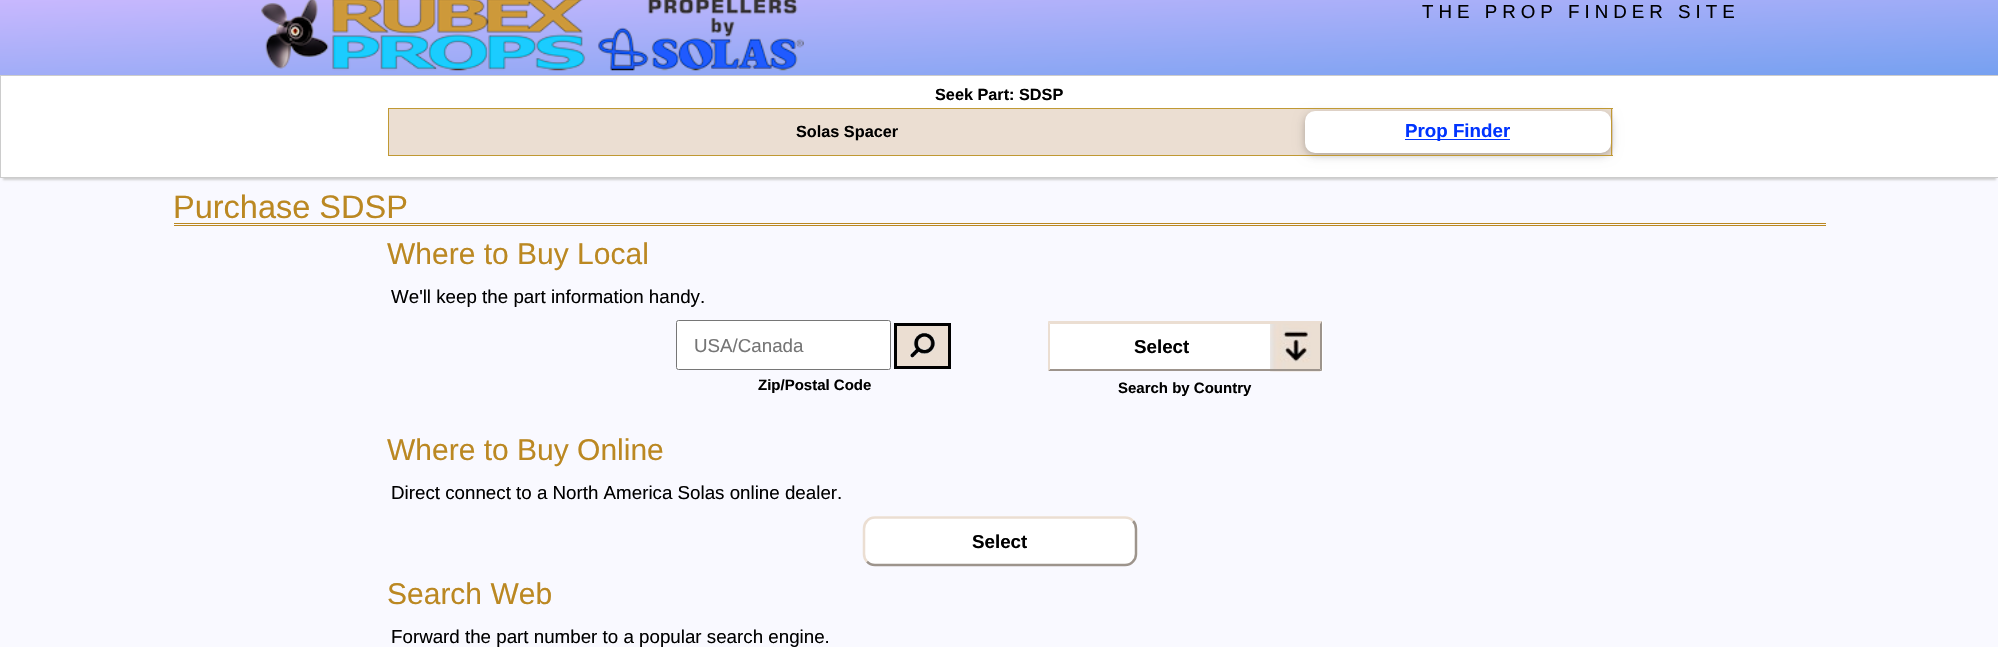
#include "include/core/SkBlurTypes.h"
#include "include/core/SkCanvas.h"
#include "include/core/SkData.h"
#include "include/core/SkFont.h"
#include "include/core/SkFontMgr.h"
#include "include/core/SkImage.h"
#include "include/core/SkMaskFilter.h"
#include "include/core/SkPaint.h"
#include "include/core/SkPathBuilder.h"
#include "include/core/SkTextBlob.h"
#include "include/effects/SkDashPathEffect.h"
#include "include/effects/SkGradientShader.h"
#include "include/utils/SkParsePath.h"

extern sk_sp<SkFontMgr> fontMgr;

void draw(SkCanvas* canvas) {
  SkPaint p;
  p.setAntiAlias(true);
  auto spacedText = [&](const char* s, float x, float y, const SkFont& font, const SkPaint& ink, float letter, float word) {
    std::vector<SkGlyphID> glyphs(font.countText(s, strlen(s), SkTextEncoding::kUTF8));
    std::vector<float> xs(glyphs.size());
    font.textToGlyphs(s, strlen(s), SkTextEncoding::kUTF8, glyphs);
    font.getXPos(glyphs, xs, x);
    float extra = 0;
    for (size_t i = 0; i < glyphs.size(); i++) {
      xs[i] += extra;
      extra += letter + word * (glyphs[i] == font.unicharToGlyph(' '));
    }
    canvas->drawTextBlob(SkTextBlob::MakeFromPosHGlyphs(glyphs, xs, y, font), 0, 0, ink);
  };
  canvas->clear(SkColorSetRGB(249, 249, 255));
  {
    const SkColor colors[] = {SkColorSetRGB(207, 186, 255), SkColorSetRGB(117, 160, 240)};
    const float stops[] = {0, 1};
    const SkPoint ends[] = {{996, -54}, {1003, 118}};
    p.setShader(SkGradientShader::MakeLinear(ends, colors, stops, 2, SkTileMode::kClamp));
    p.setAlpha(255);
  }
  canvas->drawRect(SkRect::MakeLTRB(0, 0, 1998, 75), p);
  canvas->drawImageRect(SkImages::DeferredFromEncodedData(SkData::MakeFromFileName("images/1.png")), SkRect::MakeLTRB(261, 0, 804, 71), SkSamplingOptions());
  p.setShader(nullptr);
  p.setColor(SkColorSetRGB(207, 207, 207));
  p.setMaskFilter(SkMaskFilter::MakeBlur(kNormal_SkBlurStyle, 1));
  canvas->drawRect(SkRect::MakeLTRB(3, 83, 1996, 180), p);
  p.setMaskFilter(nullptr);
  p.setColor(SK_ColorWHITE);
  canvas->drawRect(SkRect::MakeLTRB(0.5f, 75.5f, 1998.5f, 177.5f), p);
  p.setStyle(SkPaint::kStroke_Style);
  p.setStrokeWidth(1);
  p.setColor(SkColorSetRGB(204, 204, 204));
  canvas->drawRect(SkRect::MakeLTRB(0.5f, 75.5f, 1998.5f, 177.5f), p);
  p.setStyle(SkPaint::kFill_Style);
  p.setColor(SkColorSetRGB(235, 222, 210));
  canvas->drawRect(SkRect::MakeLTRB(389, 109, 1613, 155), p);
  p.setColor(SkColorSetARGB(31, 0, 0, 0));
  p.setMaskFilter(SkMaskFilter::MakeBlur(kNormal_SkBlurStyle, 6));
  canvas->drawRoundRect(SkRect::MakeLTRB(1305, 114, 1611, 155), 10, 10, p);
  p.setMaskFilter(nullptr);
  p.setColor(SkColorSetARGB(41, 0, 0, 0));
  p.setMaskFilter(SkMaskFilter::MakeBlur(kNormal_SkBlurStyle, 3));
  canvas->drawRoundRect(SkRect::MakeLTRB(1305, 114, 1611, 155), 10, 10, p);
  p.setMaskFilter(nullptr);
  p.setColor(SkColorSetRGB(192, 153, 51));
  canvas->drawRect(SkRect::MakeLTRB(388, 108, 1613, 109), p);
  canvas->drawRect(SkRect::MakeLTRB(1611, 108, 1612, 156), p);
  canvas->drawRect(SkRect::MakeLTRB(388, 155, 1613, 156), p);
  canvas->drawRect(SkRect::MakeLTRB(388, 108, 389, 156), p);
  p.setColor(SK_ColorWHITE);
  canvas->drawRoundRect(SkRect::MakeLTRB(1305, 111, 1611, 153), 10, 10, p);
  p.setColor(SkColorSetRGB(0, 52, 255));
  canvas->drawRect(SkRect::MakeLTRB(1405, 139, 1510, 140), p);
  p.setColor(SkColorSetRGB(187, 136, 34));
  canvas->drawRect(SkRect::MakeLTRB(174, 223, 1826, 224), p);
  canvas->drawRect(SkRect::MakeLTRB(174, 225, 1826, 226), p);
  p.setColor(SK_ColorWHITE);
  canvas->drawRoundRect(SkRect::MakeLTRB(676.5f, 320.5f, 890.5f, 369.5f), 2, 2, p);
  p.setStyle(SkPaint::kStroke_Style);
  p.setColor(SkColorSetRGB(118, 118, 118));
  canvas->drawRoundRect(SkRect::MakeLTRB(676.5f, 320.5f, 890.5f, 369.5f), 2, 2, p);
  p.setStyle(SkPaint::kFill_Style);
  p.setColor(SkColorSetRGB(235, 222, 210));
  canvas->drawRect(SkRect::MakeLTRB(895.5f, 324.5f, 949.5f, 367.5f), p);
  p.setStyle(SkPaint::kStroke_Style);
  p.setStrokeWidth(3);
  p.setColor(SK_ColorBLACK);
  canvas->drawRect(SkRect::MakeLTRB(895.5f, 324.5f, 949.5f, 367.5f), p);
  canvas->drawImageRect(SkImages::DeferredFromEncodedData(SkData::MakeFromFileName("images/2.png")), SkRect::MakeLTRB(909, 333, 939, 362), SkSamplingOptions());
  p.setStyle(SkPaint::kFill_Style);
  p.setColor(SK_ColorWHITE);
  canvas->drawRect(SkRect::MakeLTRB(1048, 321, 1323, 371), p);
  canvas->drawImageRect(SkImages::DeferredFromEncodedData(SkData::MakeFromFileName("images/3.png")), SkRect::MakeLTRB(1270, 324, 1320, 372), SkSamplingOptions());
  p.setColor(SkColorSetRGB(235, 222, 210));
  canvas->drawPath(SkPathBuilder().moveTo(1048, 321).lineTo(1322, 321).lineTo(1320, 324).lineTo(1050, 324).close().detach(), p);
  p.setColor(SkColorSetRGB(157, 148, 140));
  canvas->drawPath(SkPathBuilder().moveTo(1322, 321).lineTo(1322, 371).lineTo(1320, 369).lineTo(1320, 324).close().detach(), p);
  canvas->drawPath(SkPathBuilder().moveTo(1322, 371).lineTo(1048, 371).lineTo(1050, 369).lineTo(1320, 369).close().detach(), p);
  p.setColor(SkColorSetRGB(235, 222, 210));
  canvas->drawPath(SkPathBuilder().moveTo(1048, 371).lineTo(1048, 321).lineTo(1050, 324).lineTo(1050, 369).close().detach(), p);
  p.setColor(SK_ColorWHITE);
  canvas->drawRoundRect(SkRect::MakeLTRB(863, 516, 1138, 566), 13, 13, p);
  p.setStyle(SkPaint::kStroke_Style);
  p.setStrokeWidth(2.5f);
  p.setColor(SkColorSetRGB(157, 148, 140));
  canvas->drawPath(SkPathBuilder().moveTo(1133, 521).cubicTo(1135, 523, 1136, 526, 1136, 529).lineTo(1136, 554).cubicTo(1136, 556.5f, 1135, 559.5f, 1133, 561.5f).cubicTo(1131, 564, 1128, 565, 1125, 565).lineTo(875, 565).cubicTo(872, 565, 869, 564, 867, 561.5f).detach(), p);
  p.setColor(SkColorSetRGB(235, 222, 210));
  canvas->drawPath(SkPathBuilder().moveTo(867, 561.5f).cubicTo(865, 559.5f, 864, 556.5f, 864, 554).lineTo(864, 529).cubicTo(864, 526, 865, 523, 867, 521).cubicTo(869, 518.5f, 872, 517.5f, 875, 517.5f).lineTo(1125, 517.5f).cubicTo(1128, 517.5f, 1131, 518.5f, 1133, 521).detach(), p);
  SkFont font1(fontMgr->matchFamilyStyle("Liberation Sans", SkFontStyle::Normal()), 18.75f);
  font1.setSubpixel(true);
  p.setStyle(SkPaint::kFill_Style);
  p.setColor(SK_ColorBLACK);
  spacedText("THE PROP FINDER SITE", 1422, 18, font1, p, 5, 0);
  SkFont font2(fontMgr->matchFamilyStyle("Liberation Sans", SkFontStyle::Bold()), 16.25f);
  font2.setSubpixel(true);
  canvas->drawString("Seek Part: SDSP", 935, 100, font2, p);
  canvas->drawString("Solas Spacer", 796, 137, font2, p);
  SkFont font3(fontMgr->matchFamilyStyle("Liberation Sans", SkFontStyle::Bold()), 18.75f);
  font3.setSubpixel(true);
  p.setColor(SkColorSetRGB(0, 52, 255));
  canvas->drawString("Prop Finder", 1405, 137, font3, p);
  SkFont font4(fontMgr->matchFamilyStyle("Liberation Sans", SkFontStyle::Normal()), 32.5f);
  font4.setSubpixel(true);
  p.setColor(SkColorSetRGB(187, 136, 34));
  canvas->drawString("Purchase SDSP", 173, 218, font4, p);
  SkFont font5(fontMgr->matchFamilyStyle("Liberation Sans", SkFontStyle::Normal()), 30);
  font5.setSubpixel(true);
  canvas->drawString("Where to Buy Local", 387, 264, font5, p);
  p.setColor(SK_ColorBLACK);
  canvas->drawString("We'll keep the part information handy.", 391, 303, font1, p);
  p.setColor(SkColorSetRGB(117, 117, 117));
  canvas->drawString("USA/Canada", 694, 352, font1, p);
  SkFont font6(fontMgr->matchFamilyStyle("Liberation Sans", SkFontStyle::Bold()), 15);
  font6.setSubpixel(true);
  p.setColor(SK_ColorBLACK);
  canvas->drawString("Zip/Postal Code", 758, 390, font6, p);
  canvas->drawString("Select", 1134, 353, font3, p);
  canvas->drawString("Search by Country", 1118, 393, font6, p);
  p.setColor(SkColorSetRGB(187, 136, 34));
  canvas->drawString("Where to Buy Online", 387, 460, font5, p);
  p.setColor(SK_ColorBLACK);
  canvas->drawString("Direct connect to a North America Solas online dealer.", 391, 499, font1, p);
  canvas->drawString("Select", 972, 548, font3, p);
  p.setColor(SkColorSetRGB(187, 136, 34));
  canvas->drawString("Search Web", 387, 604, font5, p);
  p.setColor(SK_ColorBLACK);
  canvas->drawString("Forward the part number to a popular search engine.", 391, 643, font1, p);
}
